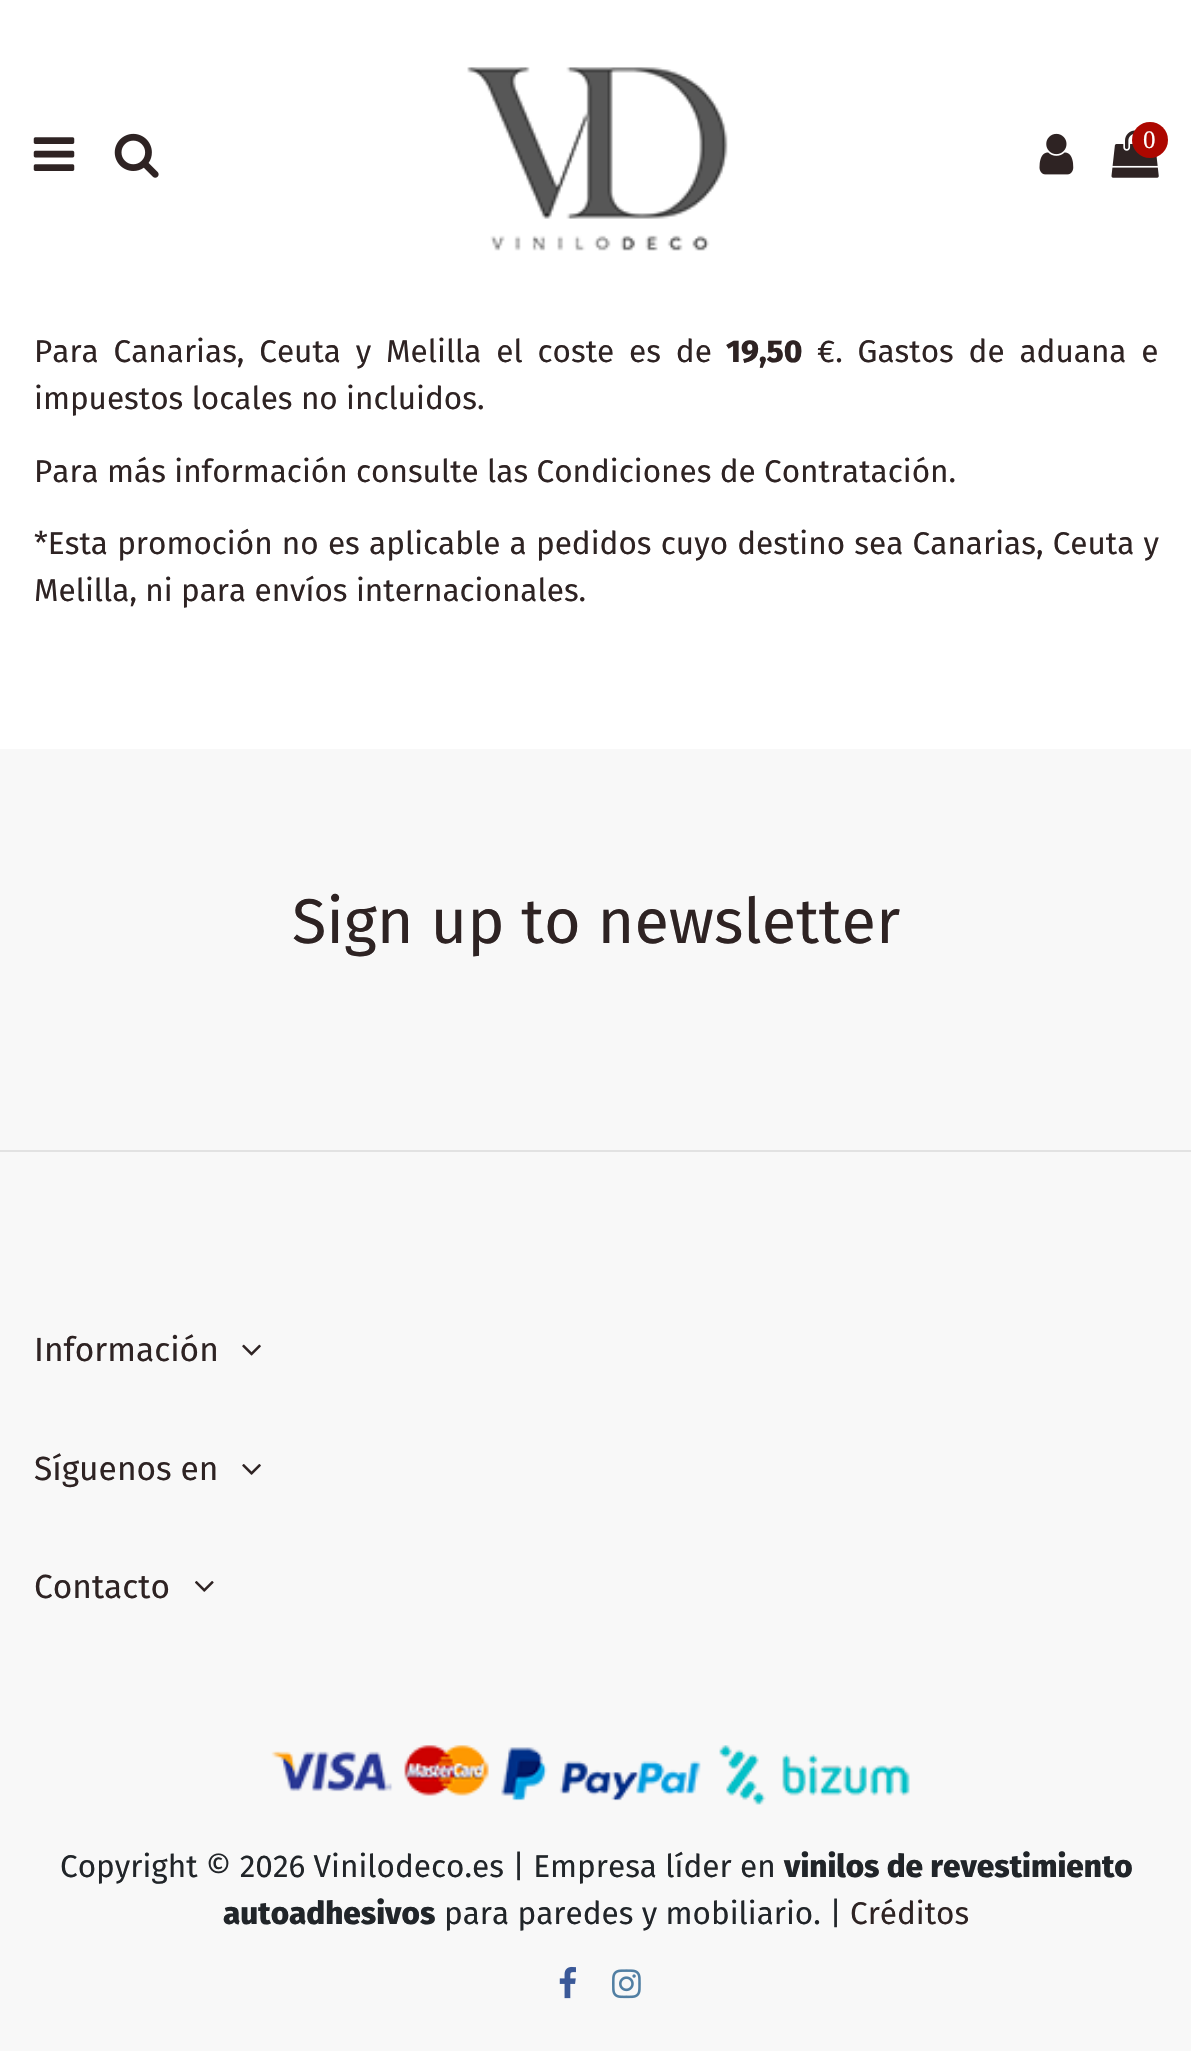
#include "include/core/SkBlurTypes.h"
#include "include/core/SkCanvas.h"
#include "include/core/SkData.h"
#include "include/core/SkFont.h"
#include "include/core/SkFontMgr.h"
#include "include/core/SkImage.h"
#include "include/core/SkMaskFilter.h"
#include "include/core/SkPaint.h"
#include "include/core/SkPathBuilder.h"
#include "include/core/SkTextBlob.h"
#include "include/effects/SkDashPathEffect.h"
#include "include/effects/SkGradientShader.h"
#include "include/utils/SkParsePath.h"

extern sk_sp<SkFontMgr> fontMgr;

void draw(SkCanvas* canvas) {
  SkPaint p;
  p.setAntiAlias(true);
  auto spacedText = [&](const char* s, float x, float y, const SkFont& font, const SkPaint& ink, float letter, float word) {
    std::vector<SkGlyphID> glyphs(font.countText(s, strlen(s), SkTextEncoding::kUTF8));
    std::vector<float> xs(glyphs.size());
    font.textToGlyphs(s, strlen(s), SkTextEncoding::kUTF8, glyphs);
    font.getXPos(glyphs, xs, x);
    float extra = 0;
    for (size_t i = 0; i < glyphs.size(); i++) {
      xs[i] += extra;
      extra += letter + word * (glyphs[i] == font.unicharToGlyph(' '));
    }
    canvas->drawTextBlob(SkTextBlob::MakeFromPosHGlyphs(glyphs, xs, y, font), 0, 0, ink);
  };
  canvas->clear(SK_ColorWHITE);
  canvas->drawImageRect(SkImages::DeferredFromEncodedData(SkData::MakeFromFileName("images/1.png")), SkRect::MakeLTRB(33, 137, 75, 171), SkSamplingOptions());
  canvas->drawImageRect(SkImages::DeferredFromEncodedData(SkData::MakeFromFileName("images/2.png")), SkRect::MakeLTRB(114, 133, 159, 178), SkSamplingOptions());
  canvas->drawImageRect(SkImages::DeferredFromEncodedData(SkData::MakeFromFileName("images/3.png")), SkRect::MakeLTRB(467, 67, 728, 251), SkSamplingOptions());
  canvas->drawImageRect(SkImages::DeferredFromEncodedData(SkData::MakeFromFileName("images/4.png")), SkRect::MakeLTRB(1039, 133, 1074, 175), SkSamplingOptions());
  canvas->drawImageRect(SkImages::DeferredFromEncodedData(SkData::MakeFromFileName("images/5.png")), SkRect::MakeLTRB(1111, 130, 1159, 178), SkSamplingOptions());
  p.setColor(SkColorSetRGB(173, 7, 0));
  canvas->drawCircle(1150, 140, 18, p);
  p.setColor(SkColorSetRGB(248, 248, 248));
  canvas->drawRect(SkRect::MakeLTRB(0, 749, 1191, 2051), p);
  p.setColor(SkColorSetRGB(226, 226, 226));
  canvas->drawRect(SkRect::MakeLTRB(0, 1150, 1191, 1152), p);
  canvas->drawImageRect(SkImages::DeferredFromEncodedData(SkData::MakeFromFileName("images/6.png")), SkRect::MakeLTRB(242, 1344, 261, 1356), SkSamplingOptions());
  canvas->drawImageRect(SkImages::DeferredFromEncodedData(SkData::MakeFromFileName("images/7.png")), SkRect::MakeLTRB(242, 1464, 261, 1475), SkSamplingOptions());
  canvas->drawImageRect(SkImages::DeferredFromEncodedData(SkData::MakeFromFileName("images/8.png")), SkRect::MakeLTRB(195, 1581, 214, 1592), SkSamplingOptions());
  canvas->drawImageRect(SkImages::DeferredFromEncodedData(SkData::MakeFromFileName("images/9.png")), SkRect::MakeLTRB(271, 1745, 910, 1805), SkSamplingOptions());
  canvas->drawImageRect(SkImages::DeferredFromEncodedData(SkData::MakeFromFileName("images/10.png")), SkRect::MakeLTRB(559, 1966, 576, 1999), SkSamplingOptions());
  canvas->drawImageRect(SkImages::DeferredFromEncodedData(SkData::MakeFromFileName("images/11.png")), SkRect::MakeLTRB(612, 1969, 641, 1999), SkSamplingOptions());
  SkFont font1(fontMgr->matchFamilyStyle("Liberation Serif", SkFontStyle::Normal()), 25);
  font1.setSubpixel(true);
  p.setColor(SK_ColorWHITE);
  canvas->drawString("0", 1143, 148, font1, p);
  SkFont font2(fontMgr->matchFamilyStyle("Fira Sans", SkFontStyle::Normal()), 31.5f);
  font2.setSubpixel(true);
  p.setColor(SkColorSetRGB(46, 35, 35));
  spacedText("Para Canarias, Ceuta y Melilla el coste es de", 34, 362, font2, p, 0, 6.5f);
  SkFont font3(fontMgr->matchFamilyStyle("Fira Sans", SkFontStyle(800, SkFontStyle::kNormal_Width, SkFontStyle::kUpright_Slant)), 31.5f);
  font3.setSubpixel(true);
  canvas->drawString("19,50", 726, 362, font3, p);
  spacedText("€. Gastos de aduana e", 817, 362, font2, p, 0, 6.5f);
  canvas->drawString("impuestos locales no incluidos.", 34, 409, font2, p);
  canvas->drawString("Para más información consulte las Condiciones de Contratación.", 34, 482, font2, p);
  spacedText("*Esta promoción no es aplicable a pedidos cuyo destino sea Canarias, Ceuta y", 34, 554, font2, p, 0, 0.9f);
  canvas->drawString("Melilla, ni para envíos internacionales.", 34, 601, font2, p);
  SkFont font4(fontMgr->matchFamilyStyle("Fira Sans", SkFontStyle::Normal()), 63);
  font4.setSubpixel(true);
  canvas->drawString("Sign up to newsletter", 292, 943, font4, p);
  SkFont font5(fontMgr->matchFamilyStyle("Fira Sans", SkFontStyle::Normal()), 33.5f);
  font5.setSubpixel(true);
  canvas->drawString("Información", 34, 1361, font5, p);
  canvas->drawString("Síguenos en", 34, 1480, font5, p);
  canvas->drawString("Contacto", 34, 1598, font5, p);
  p.setColor(SkColorSetRGB(33, 37, 41));
  canvas->drawString("Copyright © 2026 Vinilodeco.es | Empresa líder en", 60, 1877, font2, p);
  canvas->drawString("vinilos de revestimiento", 784, 1877, font3, p);
  canvas->drawString("autoadhesivos", 223, 1924, font3, p);
  canvas->drawString("para paredes y mobiliario. |", 444, 1924, font2, p);
  p.setColor(SkColorSetRGB(46, 35, 35));
  canvas->drawString("Créditos", 850, 1924, font2, p);
}
